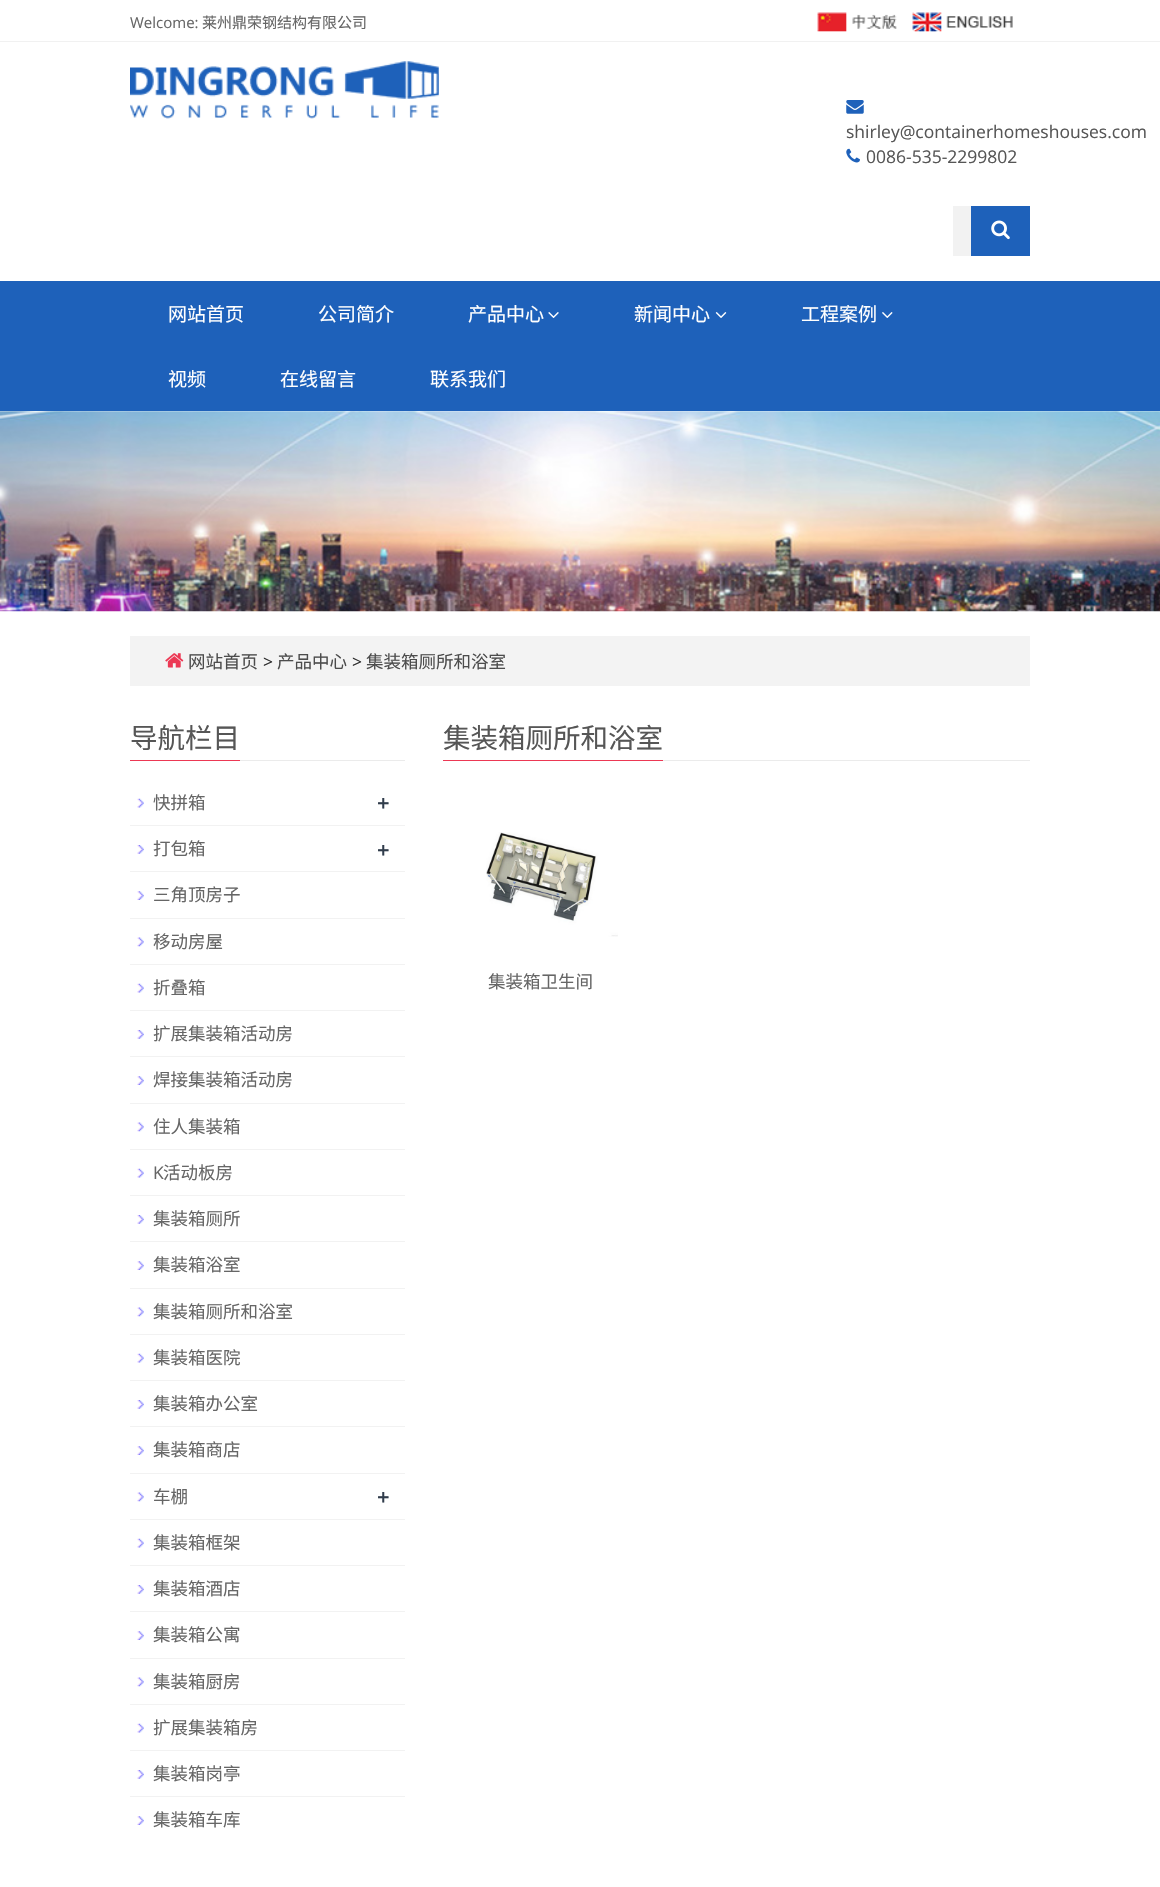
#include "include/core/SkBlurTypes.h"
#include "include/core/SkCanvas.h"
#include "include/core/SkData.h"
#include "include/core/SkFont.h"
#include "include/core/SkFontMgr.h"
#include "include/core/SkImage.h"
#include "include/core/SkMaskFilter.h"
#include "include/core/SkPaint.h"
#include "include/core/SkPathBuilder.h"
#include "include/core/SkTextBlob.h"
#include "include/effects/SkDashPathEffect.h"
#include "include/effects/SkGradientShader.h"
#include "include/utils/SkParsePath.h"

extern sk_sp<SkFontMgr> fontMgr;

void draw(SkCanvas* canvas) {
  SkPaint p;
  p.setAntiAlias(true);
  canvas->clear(SK_ColorWHITE);
  p.setColor(SkColorSetRGB(241, 241, 241));
  canvas->drawRect(SkRect::MakeLTRB(0, 41, 1160, 42), p);
  canvas->drawImageRect(SkImages::DeferredFromEncodedData(SkData::MakeFromFileName("images/1.png")), SkRect::MakeLTRB(817, 12, 897, 32), SkSamplingOptions());
  canvas->drawImageRect(SkImages::DeferredFromEncodedData(SkData::MakeFromFileName("images/2.png")), SkRect::MakeLTRB(912, 12, 1013, 32), SkSamplingOptions());
  canvas->drawImageRect(SkImages::DeferredFromEncodedData(SkData::MakeFromFileName("images/3.png")), SkRect::MakeLTRB(130, 61, 439, 119), SkSamplingOptions());
  canvas->drawImageRect(SkImages::DeferredFromEncodedData(SkData::MakeFromFileName("images/4.png")), SkRect::MakeLTRB(846, 100, 864, 114), SkSamplingOptions());
  canvas->drawImageRect(SkImages::DeferredFromEncodedData(SkData::MakeFromFileName("images/5.png")), SkRect::MakeLTRB(846, 148, 860, 163), SkSamplingOptions());
  p.setColor(SkColorSetRGB(242, 242, 242));
  canvas->drawRect(SkRect::MakeLTRB(953, 206, 971, 256), p);
  p.setColor(SkColorSetRGB(30, 97, 186));
  canvas->drawRect(SkRect::MakeLTRB(971, 206, 1030, 256), p);
  canvas->drawImageRect(SkImages::DeferredFromEncodedData(SkData::MakeFromFileName("images/6.png")), SkRect::MakeLTRB(991, 220, 1010, 240), SkSamplingOptions());
  canvas->drawRect(SkRect::MakeLTRB(0, 281, 1160, 411), p);
  canvas->drawImageRect(SkImages::DeferredFromEncodedData(SkData::MakeFromFileName("images/7.png")), SkRect::MakeLTRB(548, 312, 559, 318), SkSamplingOptions());
  canvas->drawImageRect(SkImages::DeferredFromEncodedData(SkData::MakeFromFileName("images/8.png")), SkRect::MakeLTRB(715, 312, 727, 318), SkSamplingOptions());
  canvas->drawImageRect(SkImages::DeferredFromEncodedData(SkData::MakeFromFileName("images/9.png")), SkRect::MakeLTRB(882, 312, 893, 318), SkSamplingOptions());
  canvas->drawImageRect(SkImages::DeferredFromEncodedData(SkData::MakeFromFileName("images/10.png")), SkRect::MakeLTRB(0, 411, 1160, 612), SkSamplingOptions());
  p.setColor(SkColorSetRGB(243, 243, 243));
  canvas->drawRect(SkRect::MakeLTRB(130, 636, 1030, 686), p);
  canvas->drawImageRect(SkImages::DeferredFromEncodedData(SkData::MakeFromFileName("images/11.png")), SkRect::MakeLTRB(165, 653, 184, 668), SkSamplingOptions());
  p.setColor(SkColorSetRGB(235, 235, 235));
  canvas->drawRect(SkRect::MakeLTRB(240, 760, 405, 761), p);
  p.setColor(SkColorSetRGB(236, 56, 84));
  canvas->drawRect(SkRect::MakeLTRB(130, 760, 240, 761), p);
  canvas->drawImageRect(SkImages::DeferredFromEncodedData(SkData::MakeFromFileName("images/12.png")), SkRect::MakeLTRB(137, 798, 144, 808), SkSamplingOptions());
  p.setColor(SkColorSetRGB(242, 242, 242));
  canvas->drawRect(SkRect::MakeLTRB(130, 825, 405, 826), p);
  canvas->drawImageRect(SkImages::DeferredFromEncodedData(SkData::MakeFromFileName("images/13.png")), SkRect::MakeLTRB(137, 845, 144, 854), SkSamplingOptions());
  canvas->drawRect(SkRect::MakeLTRB(130, 871, 405, 872), p);
  canvas->drawImageRect(SkImages::DeferredFromEncodedData(SkData::MakeFromFileName("images/14.png")), SkRect::MakeLTRB(137, 891, 144, 900), SkSamplingOptions());
  canvas->drawRect(SkRect::MakeLTRB(130, 918, 405, 919), p);
  canvas->drawImageRect(SkImages::DeferredFromEncodedData(SkData::MakeFromFileName("images/15.png")), SkRect::MakeLTRB(137, 937, 144, 947), SkSamplingOptions());
  canvas->drawRect(SkRect::MakeLTRB(130, 964, 405, 965), p);
  canvas->drawImageRect(SkImages::DeferredFromEncodedData(SkData::MakeFromFileName("images/12.png")), SkRect::MakeLTRB(137, 983, 144, 993), SkSamplingOptions());
  canvas->drawRect(SkRect::MakeLTRB(130, 1010, 405, 1011), p);
  canvas->drawImageRect(SkImages::DeferredFromEncodedData(SkData::MakeFromFileName("images/13.png")), SkRect::MakeLTRB(137, 1030, 144, 1039), SkSamplingOptions());
  canvas->drawRect(SkRect::MakeLTRB(130, 1056, 405, 1057), p);
  canvas->drawImageRect(SkImages::DeferredFromEncodedData(SkData::MakeFromFileName("images/14.png")), SkRect::MakeLTRB(137, 1076, 144, 1085), SkSamplingOptions());
  canvas->drawRect(SkRect::MakeLTRB(130, 1103, 405, 1104), p);
  canvas->drawImageRect(SkImages::DeferredFromEncodedData(SkData::MakeFromFileName("images/15.png")), SkRect::MakeLTRB(137, 1122, 144, 1132), SkSamplingOptions());
  canvas->drawRect(SkRect::MakeLTRB(130, 1149, 405, 1150), p);
  canvas->drawImageRect(SkImages::DeferredFromEncodedData(SkData::MakeFromFileName("images/12.png")), SkRect::MakeLTRB(137, 1168, 144, 1178), SkSamplingOptions());
  canvas->drawRect(SkRect::MakeLTRB(130, 1195, 405, 1196), p);
  canvas->drawImageRect(SkImages::DeferredFromEncodedData(SkData::MakeFromFileName("images/13.png")), SkRect::MakeLTRB(137, 1215, 144, 1224), SkSamplingOptions());
  canvas->drawRect(SkRect::MakeLTRB(130, 1241, 405, 1242), p);
  canvas->drawImageRect(SkImages::DeferredFromEncodedData(SkData::MakeFromFileName("images/14.png")), SkRect::MakeLTRB(137, 1261, 144, 1270), SkSamplingOptions());
  canvas->drawRect(SkRect::MakeLTRB(130, 1288, 405, 1289), p);
  canvas->drawImageRect(SkImages::DeferredFromEncodedData(SkData::MakeFromFileName("images/15.png")), SkRect::MakeLTRB(137, 1307, 144, 1317), SkSamplingOptions());
  canvas->drawRect(SkRect::MakeLTRB(130, 1334, 405, 1335), p);
  canvas->drawImageRect(SkImages::DeferredFromEncodedData(SkData::MakeFromFileName("images/12.png")), SkRect::MakeLTRB(137, 1353, 144, 1363), SkSamplingOptions());
  canvas->drawRect(SkRect::MakeLTRB(130, 1380, 405, 1381), p);
  canvas->drawImageRect(SkImages::DeferredFromEncodedData(SkData::MakeFromFileName("images/13.png")), SkRect::MakeLTRB(137, 1400, 144, 1409), SkSamplingOptions());
  canvas->drawRect(SkRect::MakeLTRB(130, 1426, 405, 1427), p);
  canvas->drawImageRect(SkImages::DeferredFromEncodedData(SkData::MakeFromFileName("images/14.png")), SkRect::MakeLTRB(137, 1446, 144, 1455), SkSamplingOptions());
  canvas->drawRect(SkRect::MakeLTRB(130, 1473, 405, 1474), p);
  canvas->drawImageRect(SkImages::DeferredFromEncodedData(SkData::MakeFromFileName("images/15.png")), SkRect::MakeLTRB(137, 1492, 144, 1502), SkSamplingOptions());
  canvas->drawRect(SkRect::MakeLTRB(130, 1519, 405, 1520), p);
  canvas->drawImageRect(SkImages::DeferredFromEncodedData(SkData::MakeFromFileName("images/12.png")), SkRect::MakeLTRB(137, 1538, 144, 1548), SkSamplingOptions());
  canvas->drawRect(SkRect::MakeLTRB(130, 1565, 405, 1566), p);
  canvas->drawImageRect(SkImages::DeferredFromEncodedData(SkData::MakeFromFileName("images/13.png")), SkRect::MakeLTRB(137, 1585, 144, 1594), SkSamplingOptions());
  canvas->drawRect(SkRect::MakeLTRB(130, 1611, 405, 1612), p);
  canvas->drawImageRect(SkImages::DeferredFromEncodedData(SkData::MakeFromFileName("images/14.png")), SkRect::MakeLTRB(137, 1631, 144, 1640), SkSamplingOptions());
  canvas->drawRect(SkRect::MakeLTRB(130, 1658, 405, 1659), p);
  canvas->drawImageRect(SkImages::DeferredFromEncodedData(SkData::MakeFromFileName("images/15.png")), SkRect::MakeLTRB(137, 1677, 144, 1687), SkSamplingOptions());
  canvas->drawRect(SkRect::MakeLTRB(130, 1704, 405, 1705), p);
  canvas->drawImageRect(SkImages::DeferredFromEncodedData(SkData::MakeFromFileName("images/12.png")), SkRect::MakeLTRB(137, 1723, 144, 1733), SkSamplingOptions());
  canvas->drawRect(SkRect::MakeLTRB(130, 1750, 405, 1751), p);
  canvas->drawImageRect(SkImages::DeferredFromEncodedData(SkData::MakeFromFileName("images/13.png")), SkRect::MakeLTRB(137, 1770, 144, 1779), SkSamplingOptions());
  canvas->drawRect(SkRect::MakeLTRB(130, 1796, 405, 1797), p);
  canvas->drawImageRect(SkImages::DeferredFromEncodedData(SkData::MakeFromFileName("images/14.png")), SkRect::MakeLTRB(137, 1816, 144, 1825), SkSamplingOptions());
  p.setColor(SkColorSetRGB(235, 235, 235));
  canvas->drawRect(SkRect::MakeLTRB(663, 760, 1030, 761), p);
  p.setColor(SkColorSetRGB(236, 56, 84));
  canvas->drawRect(SkRect::MakeLTRB(443, 760, 663, 761), p);
  canvas->drawImageRect(SkImages::DeferredFromEncodedData(SkData::MakeFromFileName("images/16.png")), SkRect::MakeLTRB(486, 832, 618, 937), SkSamplingOptions());
  SkFont font1(fontMgr->matchFamilyStyle("Open Sans", SkFontStyle::Normal()), 15);
  font1.setSubpixel(true);
  p.setColor(SkColorSetRGB(102, 102, 102));
  canvas->drawString("Welcome:", 130, 28, font1, p);
  SkFont font2(fontMgr->matchFamilyStyle("Noto Sans CJK SC", SkFontStyle::Normal()), 15);
  font2.setSubpixel(true);
  canvas->drawString("莱州鼎荣钢结构有限公司", 202, 28, font2, p);
  SkFont font3(fontMgr->matchFamilyStyle("Open Sans", SkFontStyle::Normal()), 17.5f);
  font3.setSubpixel(true);
  p.setColor(SkColorSetRGB(86, 86, 86));
  canvas->drawString("shirley@containerhomeshouses.com", 846, 138, font3, p);
  canvas->drawString("0086-535-2299802", 866, 163, font3, p);
  SkFont font4(fontMgr->matchFamilyStyle("Noto Sans CJK SC", SkFontStyle::Normal()), 19);
  font4.setSubpixel(true);
  p.setColor(SK_ColorWHITE);
  canvas->drawString("网站首页", 168, 321, font4, p);
  canvas->drawString("公司简介", 318, 321, font4, p);
  canvas->drawString("产品中心", 468, 321, font4, p);
  canvas->drawString("新闻中心", 634, 321, font4, p);
  canvas->drawString("工程案例", 801, 321, font4, p);
  canvas->drawString("视频", 168, 386, font4, p);
  canvas->drawString("在线留言", 280, 386, font4, p);
  canvas->drawString("联系我们", 430, 386, font4, p);
  SkFont font5(fontMgr->matchFamilyStyle("Noto Sans CJK SC", SkFontStyle::Normal()), 17.5f);
  font5.setSubpixel(true);
  p.setColor(SkColorSetRGB(76, 76, 76));
  canvas->drawString("网站首页", 188, 668, font5, p);
  p.setColor(SkColorSetRGB(47, 47, 47));
  canvas->drawString(">", 263, 668, font3, p);
  p.setColor(SkColorSetRGB(76, 76, 76));
  canvas->drawString("产品中心", 277, 668, font5, p);
  p.setColor(SkColorSetRGB(47, 47, 47));
  canvas->drawString(">", 352, 668, font3, p);
  p.setColor(SkColorSetRGB(76, 76, 76));
  canvas->drawString("集装箱厕所和浴室", 366, 668, font5, p);
  SkFont font6(fontMgr->matchFamilyStyle("Noto Sans CJK SC", SkFontStyle::Normal()), 27.5f);
  font6.setSubpixel(true);
  p.setColor(SkColorSetRGB(86, 86, 86));
  canvas->drawString("导航栏目", 130, 748, font6, p);
  p.setColor(SkColorSetRGB(102, 102, 102));
  canvas->drawString("快拼箱", 153, 809, font5, p);
  SkFont font7(fontMgr->matchFamilyStyle("Open Sans", SkFontStyle(600, SkFontStyle::kNormal_Width, SkFontStyle::kUpright_Slant)), 22);
  font7.setSubpixel(true);
  p.setColor(SkColorSetRGB(48, 60, 75));
  canvas->drawString("+", 377, 811, font7, p);
  p.setColor(SkColorSetRGB(102, 102, 102));
  canvas->drawString("打包箱", 153, 855, font5, p);
  p.setColor(SkColorSetRGB(48, 60, 75));
  canvas->drawString("+", 377, 858, font7, p);
  p.setColor(SkColorSetRGB(102, 102, 102));
  canvas->drawString("三角顶房子", 153, 901, font5, p);
  canvas->drawString("移动房屋", 153, 948, font5, p);
  canvas->drawString("折叠箱", 153, 994, font5, p);
  canvas->drawString("扩展集装箱活动房", 153, 1040, font5, p);
  canvas->drawString("焊接集装箱活动房", 153, 1086, font5, p);
  canvas->drawString("住人集装箱", 153, 1133, font5, p);
  canvas->drawString("K", 153, 1179, font3, p);
  canvas->drawString("活动板房", 163, 1179, font5, p);
  canvas->drawString("集装箱厕所", 153, 1225, font5, p);
  canvas->drawString("集装箱浴室", 153, 1271, font5, p);
  canvas->drawString("集装箱厕所和浴室", 153, 1318, font5, p);
  canvas->drawString("集装箱医院", 153, 1364, font5, p);
  canvas->drawString("集装箱办公室", 153, 1410, font5, p);
  canvas->drawString("集装箱商店", 153, 1456, font5, p);
  canvas->drawString("车棚", 153, 1503, font5, p);
  p.setColor(SkColorSetRGB(48, 60, 75));
  canvas->drawString("+", 377, 1505, font7, p);
  p.setColor(SkColorSetRGB(102, 102, 102));
  canvas->drawString("集装箱框架", 153, 1549, font5, p);
  canvas->drawString("集装箱酒店", 153, 1595, font5, p);
  canvas->drawString("集装箱公寓", 153, 1641, font5, p);
  canvas->drawString("集装箱厨房", 153, 1688, font5, p);
  canvas->drawString("扩展集装箱房", 153, 1734, font5, p);
  canvas->drawString("集装箱岗亭", 153, 1780, font5, p);
  canvas->drawString("集装箱车库", 153, 1826, font5, p);
  p.setColor(SkColorSetRGB(86, 86, 86));
  canvas->drawString("集装箱厕所和浴室", 443, 748, font6, p);
  p.setColor(SkColorSetRGB(102, 102, 102));
  canvas->drawString("集装箱卫生间", 488, 988, font5, p);
}
